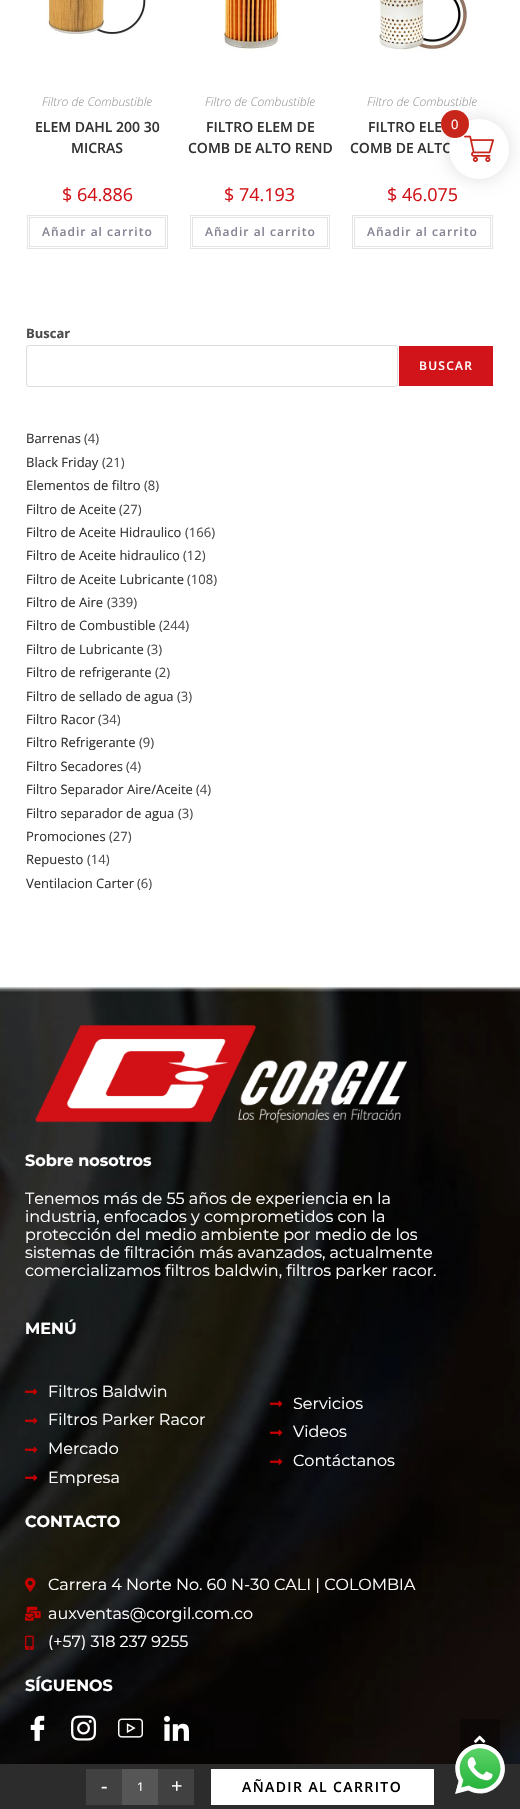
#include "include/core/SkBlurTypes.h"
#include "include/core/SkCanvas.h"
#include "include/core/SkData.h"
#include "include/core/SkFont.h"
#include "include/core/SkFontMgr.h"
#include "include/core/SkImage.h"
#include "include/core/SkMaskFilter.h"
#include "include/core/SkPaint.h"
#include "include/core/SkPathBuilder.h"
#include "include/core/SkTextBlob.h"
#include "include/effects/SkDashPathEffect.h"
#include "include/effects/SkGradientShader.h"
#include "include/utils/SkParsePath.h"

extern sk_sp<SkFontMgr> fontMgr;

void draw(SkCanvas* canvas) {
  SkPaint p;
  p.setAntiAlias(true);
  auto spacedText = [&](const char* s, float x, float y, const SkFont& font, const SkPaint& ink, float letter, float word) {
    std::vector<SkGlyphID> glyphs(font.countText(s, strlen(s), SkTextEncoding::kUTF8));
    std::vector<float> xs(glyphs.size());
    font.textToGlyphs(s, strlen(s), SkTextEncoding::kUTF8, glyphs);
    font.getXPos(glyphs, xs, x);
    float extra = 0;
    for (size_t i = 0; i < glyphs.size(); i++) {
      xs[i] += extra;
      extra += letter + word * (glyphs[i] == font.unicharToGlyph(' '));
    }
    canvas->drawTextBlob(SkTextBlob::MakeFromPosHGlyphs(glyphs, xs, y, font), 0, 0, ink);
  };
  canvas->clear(SK_ColorWHITE);
  canvas->drawImageRect(SkImages::DeferredFromEncodedData(SkData::MakeFromFileName("images/1.png")), SkRect::MakeLTRB(46, 0, 146, 36), SkSamplingOptions());
  p.setStyle(SkPaint::kStroke_Style);
  p.setStrokeWidth(1);
  p.setColor(SkColorSetRGB(228, 228, 228));
  canvas->drawRect(SkRect::MakeLTRB(27.5f, 215.5f, 167.5f, 248.5f), p);
  canvas->drawRect(SkRect::MakeLTRB(29.5f, 217.5f, 165.5f, 246.5f), p);
  canvas->drawImageRect(SkImages::DeferredFromEncodedData(SkData::MakeFromFileName("images/2.png")), SkRect::MakeLTRB(223, 0, 281, 50), SkSamplingOptions());
  canvas->drawRect(SkRect::MakeLTRB(190.5f, 215.5f, 329.5f, 248.5f), p);
  canvas->drawRect(SkRect::MakeLTRB(192.5f, 217.5f, 327.5f, 246.5f), p);
  canvas->drawImageRect(SkImages::DeferredFromEncodedData(SkData::MakeFromFileName("images/3.png")), SkRect::MakeLTRB(379, 0, 468, 52), SkSamplingOptions());
  canvas->drawRect(SkRect::MakeLTRB(352.5f, 215.5f, 492.5f, 248.5f), p);
  canvas->drawRect(SkRect::MakeLTRB(354.5f, 217.5f, 490.5f, 246.5f), p);
  p.setColor(SkColorSetRGB(221, 221, 221));
  canvas->drawRoundRect(SkRect::MakeLTRB(26.5f, 345.5f, 397.5f, 386.5f), 2.5f, 2.5f, p);
  p.setStyle(SkPaint::kFill_Style);
  p.setColor(SkColorSetRGB(209, 20, 25));
  canvas->drawRect(SkRect::MakeLTRB(399, 346, 493, 386), p);
  canvas->drawImageRect(SkImages::DeferredFromEncodedData(SkData::MakeFromFileName("images/4.png")), SkRect::MakeLTRB(0, 985, 520, 1764), SkSamplingOptions());
  canvas->drawImageRect(SkImages::DeferredFromEncodedData(SkData::MakeFromFileName("images/5.png")), SkRect::MakeLTRB(35, 1025, 407, 1124), SkSamplingOptions());
  canvas->drawImageRect(SkImages::DeferredFromEncodedData(SkData::MakeFromFileName("images/6.png")), SkRect::MakeLTRB(25, 1388, 38, 1395), SkSamplingOptions());
  canvas->drawImageRect(SkImages::DeferredFromEncodedData(SkData::MakeFromFileName("images/7.png")), SkRect::MakeLTRB(25, 1417, 38, 1424), SkSamplingOptions());
  canvas->drawImageRect(SkImages::DeferredFromEncodedData(SkData::MakeFromFileName("images/8.png")), SkRect::MakeLTRB(25, 1446, 38, 1453), SkSamplingOptions());
  canvas->drawImageRect(SkImages::DeferredFromEncodedData(SkData::MakeFromFileName("images/9.png")), SkRect::MakeLTRB(25, 1474, 38, 1481), SkSamplingOptions());
  canvas->drawImageRect(SkImages::DeferredFromEncodedData(SkData::MakeFromFileName("images/10.png")), SkRect::MakeLTRB(270, 1400, 283, 1407), SkSamplingOptions());
  canvas->drawImageRect(SkImages::DeferredFromEncodedData(SkData::MakeFromFileName("images/11.png")), SkRect::MakeLTRB(270, 1429, 283, 1436), SkSamplingOptions());
  canvas->drawImageRect(SkImages::DeferredFromEncodedData(SkData::MakeFromFileName("images/12.png")), SkRect::MakeLTRB(270, 1458, 283, 1465), SkSamplingOptions());
  canvas->drawImageRect(SkImages::DeferredFromEncodedData(SkData::MakeFromFileName("images/13.png")), SkRect::MakeLTRB(25, 1577, 36, 1592), SkSamplingOptions());
  canvas->drawImageRect(SkImages::DeferredFromEncodedData(SkData::MakeFromFileName("images/14.png")), SkRect::MakeLTRB(25, 1606, 41, 1621), SkSamplingOptions());
  canvas->drawImageRect(SkImages::DeferredFromEncodedData(SkData::MakeFromFileName("images/15.png")), SkRect::MakeLTRB(25, 1635, 34, 1650), SkSamplingOptions());
  canvas->drawImageRect(SkImages::DeferredFromEncodedData(SkData::MakeFromFileName("images/16.png")), SkRect::MakeLTRB(30, 1715, 45, 1741), SkSamplingOptions());
  canvas->drawImageRect(SkImages::DeferredFromEncodedData(SkData::MakeFromFileName("images/17.png")), SkRect::MakeLTRB(71, 1715, 97, 1741), SkSamplingOptions());
  canvas->drawImageRect(SkImages::DeferredFromEncodedData(SkData::MakeFromFileName("images/18.png")), SkRect::MakeLTRB(118, 1718, 143, 1738), SkSamplingOptions());
  canvas->drawImageRect(SkImages::DeferredFromEncodedData(SkData::MakeFromFileName("images/19.png")), SkRect::MakeLTRB(164, 1715, 189, 1741), SkSamplingOptions());
  p.setColor(SkColorSetRGB(44, 44, 44));
  canvas->drawRect(SkRect::MakeLTRB(0, 1764, 520, 1809), p);
  p.setColor(SkColorSetRGB(65, 65, 65));
  canvas->drawRect(SkRect::MakeLTRB(86, 1769, 122, 1805), p);
  p.setColor(SkColorSetRGB(86, 86, 86));
  canvas->drawRect(SkRect::MakeLTRB(122, 1769, 158, 1805), p);
  p.setColor(SkColorSetRGB(65, 65, 65));
  canvas->drawRect(SkRect::MakeLTRB(158, 1769, 194, 1805), p);
  p.setColor(SK_ColorWHITE);
  canvas->drawRect(SkRect::MakeLTRB(211, 1769, 434, 1805), p);
  p.setColor(SkColorSetARGB(26, 0, 0, 0));
  p.setMaskFilter(SkMaskFilter::MakeBlur(kNormal_SkBlurStyle, 7.5f));
  canvas->drawRoundRect(SkRect::MakeLTRB(447, 117, 511, 181), 32, 32, p);
  p.setMaskFilter(nullptr);
  p.setColor(SkColorSetARGB(102, 0, 0, 0));
  canvas->drawRoundRect(SkRect::MakeLTRB(460, 1719, 500, 1759), 2, 2, p);
  canvas->drawImageRect(SkImages::DeferredFromEncodedData(SkData::MakeFromFileName("images/21.png")), SkRect::MakeLTRB(474, 1735, 486, 1743), SkSamplingOptions());
  canvas->drawImageRect(SkImages::DeferredFromEncodedData(SkData::MakeFromFileName("images/22.png")), SkRect::MakeLTRB(455, 1744, 505, 1794), SkSamplingOptions());
  SkFont font1(fontMgr->matchFamilyStyle("Open Sans", SkFontStyle(300, SkFontStyle::kNormal_Width, SkFontStyle::kItalic_Slant)), 12);
  font1.setSubpixel(true);
  p.setColor(SkColorSetRGB(153, 153, 153));
  canvas->drawString("Filtro de Combustible", 42, 106, font1, p);
  SkFont font2(fontMgr->matchFamilyStyle("Open Sans", SkFontStyle(600, SkFontStyle::kNormal_Width, SkFontStyle::kUpright_Slant)), 14);
  font2.setSubpixel(true);
  p.setColor(SkColorSetRGB(51, 51, 51));
  canvas->drawString("ELEM DAHL 200 30", 35, 132, font2, p);
  canvas->drawString("MICRAS", 71, 153, font2, p);
  SkFont font3(fontMgr->matchFamilyStyle("Open Sans", SkFontStyle::Normal()), 18);
  font3.setSubpixel(true);
  p.setColor(SkColorSetRGB(209, 20, 25));
  canvas->drawString("$ 64.886", 62, 201, font3, p);
  SkFont font4(fontMgr->matchFamilyStyle("Open Sans", SkFontStyle(600, SkFontStyle::kNormal_Width, SkFontStyle::kUpright_Slant)), 12);
  font4.setSubpixel(true);
  p.setColor(SkColorSetRGB(132, 132, 148));
  spacedText("Añadir al carrito", 42, 236, font4, p, 1, 0);
  p.setColor(SkColorSetRGB(153, 153, 153));
  canvas->drawString("Filtro de Combustible", 205, 106, font1, p);
  p.setColor(SkColorSetRGB(51, 51, 51));
  canvas->drawString("FILTRO ELEM DE", 206, 132, font2, p);
  canvas->drawString("COMB DE ALTO REND", 188, 153, font2, p);
  p.setColor(SkColorSetRGB(209, 20, 25));
  canvas->drawString("$ 74.193", 224, 201, font3, p);
  p.setColor(SkColorSetRGB(132, 132, 148));
  spacedText("Añadir al carrito", 205, 236, font4, p, 1, 0);
  p.setColor(SkColorSetRGB(153, 153, 153));
  canvas->drawString("Filtro de Combustible", 367, 106, font1, p);
  p.setColor(SkColorSetRGB(51, 51, 51));
  canvas->drawString("FILTRO ELE", 368, 132, font2, p);
  canvas->drawString("COMB DE ALTO", 350, 153, font2, p);
  p.setColor(SkColorSetRGB(209, 20, 25));
  canvas->drawString("$ 46.075", 387, 201, font3, p);
  p.setColor(SkColorSetRGB(132, 132, 148));
  spacedText("Añadir al carrito", 367, 236, font4, p, 1, 0);
  SkFont font5(fontMgr->matchFamilyStyle("Open Sans", SkFontStyle::Bold()), 13);
  font5.setSubpixel(true);
  p.setColor(SkColorSetRGB(74, 74, 74));
  canvas->drawString("Buscar", 26, 338, font5, p);
  p.setColor(SK_ColorWHITE);
  spacedText("BUSCAR", 419, 370, font4, p, 1.25f, 0);
  SkFont font6(fontMgr->matchFamilyStyle("Open Sans", SkFontStyle::Normal()), 13);
  font6.setSubpixel(true);
  p.setColor(SkColorSetRGB(51, 51, 51));
  canvas->drawString("Barrenas", 26, 443, font6, p);
  p.setColor(SkColorSetRGB(74, 74, 74));
  canvas->drawString("(4)", 84, 443, font6, p);
  p.setColor(SkColorSetRGB(51, 51, 51));
  canvas->drawString("Black Friday", 26, 467, font6, p);
  p.setColor(SkColorSetRGB(74, 74, 74));
  canvas->drawString("(21)", 102, 467, font6, p);
  p.setColor(SkColorSetRGB(51, 51, 51));
  canvas->drawString("Elementos de filtro", 26, 490, font6, p);
  p.setColor(SkColorSetRGB(74, 74, 74));
  canvas->drawString("(8)", 144, 490, font6, p);
  p.setColor(SkColorSetRGB(51, 51, 51));
  canvas->drawString("Filtro de Aceite", 26, 514, font6, p);
  p.setColor(SkColorSetRGB(74, 74, 74));
  canvas->drawString("(27)", 119, 514, font6, p);
  p.setColor(SkColorSetRGB(51, 51, 51));
  canvas->drawString("Filtro de Aceite Hidraulico", 26, 537, font6, p);
  p.setColor(SkColorSetRGB(74, 74, 74));
  canvas->drawString("(166)", 185, 537, font6, p);
  p.setColor(SkColorSetRGB(51, 51, 51));
  canvas->drawString("Filtro de Aceite hidraulico", 26, 560, font6, p);
  p.setColor(SkColorSetRGB(74, 74, 74));
  canvas->drawString("(12)", 183, 560, font6, p);
  p.setColor(SkColorSetRGB(51, 51, 51));
  canvas->drawString("Filtro de Aceite Lubricante", 26, 584, font6, p);
  p.setColor(SkColorSetRGB(74, 74, 74));
  canvas->drawString("(108)", 187, 584, font6, p);
  p.setColor(SkColorSetRGB(51, 51, 51));
  canvas->drawString("Filtro de Aire", 26, 607, font6, p);
  p.setColor(SkColorSetRGB(74, 74, 74));
  canvas->drawString("(339)", 107, 607, font6, p);
  p.setColor(SkColorSetRGB(51, 51, 51));
  canvas->drawString("Filtro de Combustible", 26, 630, font6, p);
  p.setColor(SkColorSetRGB(74, 74, 74));
  canvas->drawString("(244)", 159, 630, font6, p);
  p.setColor(SkColorSetRGB(51, 51, 51));
  canvas->drawString("Filtro de Lubricante", 26, 654, font6, p);
  p.setColor(SkColorSetRGB(74, 74, 74));
  canvas->drawString("(3)", 147, 654, font6, p);
  p.setColor(SkColorSetRGB(51, 51, 51));
  canvas->drawString("Filtro de refrigerante", 26, 677, font6, p);
  p.setColor(SkColorSetRGB(74, 74, 74));
  canvas->drawString("(2)", 155, 677, font6, p);
  p.setColor(SkColorSetRGB(51, 51, 51));
  canvas->drawString("Filtro de sellado de agua", 26, 701, font6, p);
  p.setColor(SkColorSetRGB(74, 74, 74));
  canvas->drawString("(3)", 177, 701, font6, p);
  p.setColor(SkColorSetRGB(51, 51, 51));
  canvas->drawString("Filtro Racor", 26, 724, font6, p);
  p.setColor(SkColorSetRGB(74, 74, 74));
  canvas->drawString("(34)", 98, 724, font6, p);
  p.setColor(SkColorSetRGB(51, 51, 51));
  canvas->drawString("Filtro Refrigerante", 26, 747, font6, p);
  p.setColor(SkColorSetRGB(74, 74, 74));
  canvas->drawString("(9)", 139, 747, font6, p);
  p.setColor(SkColorSetRGB(51, 51, 51));
  canvas->drawString("Filtro Secadores", 26, 771, font6, p);
  p.setColor(SkColorSetRGB(74, 74, 74));
  canvas->drawString("(4)", 126, 771, font6, p);
  p.setColor(SkColorSetRGB(51, 51, 51));
  canvas->drawString("Filtro Separador Aire/Aceite", 26, 794, font6, p);
  p.setColor(SkColorSetRGB(74, 74, 74));
  canvas->drawString("(4)", 196, 794, font6, p);
  p.setColor(SkColorSetRGB(51, 51, 51));
  canvas->drawString("Filtro separador de agua", 26, 818, font6, p);
  p.setColor(SkColorSetRGB(74, 74, 74));
  canvas->drawString("(3)", 178, 818, font6, p);
  p.setColor(SkColorSetRGB(51, 51, 51));
  canvas->drawString("Promociones", 26, 841, font6, p);
  p.setColor(SkColorSetRGB(74, 74, 74));
  canvas->drawString("(27)", 109, 841, font6, p);
  p.setColor(SkColorSetRGB(51, 51, 51));
  canvas->drawString("Repuesto", 26, 864, font6, p);
  p.setColor(SkColorSetRGB(74, 74, 74));
  canvas->drawString("(14)", 87, 864, font6, p);
  p.setColor(SkColorSetRGB(51, 51, 51));
  canvas->drawString("Ventilacion Carter", 26, 888, font6, p);
  p.setColor(SkColorSetRGB(74, 74, 74));
  canvas->drawString("(6)", 137, 888, font6, p);
  SkFont font7(fontMgr->matchFamilyStyle("Montserrat", SkFontStyle::Bold()), 16);
  font7.setSubpixel(true);
  p.setColor(SK_ColorWHITE);
  canvas->drawString("Sobre nosotros", 25, 1166, font7, p);
  SkFont font8(fontMgr->matchFamilyStyle("Montserrat", SkFontStyle::Normal()), 16);
  font8.setSubpixel(true);
  canvas->drawString("Tenemos más de 55 años de experiencia en la", 25, 1204, font8, p);
  canvas->drawString("industria, enfocados y comprometidos con la", 25, 1222, font8, p);
  canvas->drawString("protección del medio ambiente por medio de los", 25, 1240, font8, p);
  canvas->drawString("sistemas de filtración más avanzados, actualmente", 25, 1258, font8, p);
  canvas->drawString("comercializamos filtros baldwin, filtros parker racor.", 25, 1276, font8, p);
  canvas->drawString("MENÚ", 25, 1334, font7, p);
  canvas->drawString("Filtros Baldwin", 48, 1397, font8, p);
  canvas->drawString("Filtros Parker Racor", 48, 1425, font8, p);
  canvas->drawString("Mercado", 48, 1454, font8, p);
  canvas->drawString("Empresa", 48, 1483, font8, p);
  canvas->drawString("Servicios", 293, 1409, font8, p);
  canvas->drawString("Videos", 293, 1437, font8, p);
  canvas->drawString("Contáctanos", 293, 1466, font8, p);
  canvas->drawString("CONTACTO", 25, 1527, font7, p);
  canvas->drawString("Carrera 4 Norte No. 60 N-30 CALI | COLOMBIA", 48, 1590, font8, p);
  canvas->drawString("auxventas@corgil.com.co", 48, 1619, font8, p);
  canvas->drawString("(+57) 318 237 9255", 48, 1647, font8, p);
  canvas->drawString("SÍGUENOS", 25, 1691, font7, p);
  SkFont font9(fontMgr->matchFamilyStyle("Open Sans", SkFontStyle::Normal()), 20);
  font9.setSubpixel(true);
  canvas->drawString("-", 101, 1793, font9, p);
  SkFont font10(fontMgr->matchFamilyStyle("Open Sans", SkFontStyle::Normal()), 12);
  font10.setSubpixel(true);
  canvas->drawString("1", 137, 1791, font10, p);
  canvas->drawString("+", 171, 1793, font9, p);
  p.setColor(SK_ColorBLACK);
  spacedText("AÑADIR AL CARRITO", 242, 1792, font2, p, 1.4f, 0);
  p.setColor(SK_ColorWHITE);
  canvas->drawCircle(479, 149, 30, p);
  canvas->drawImageRect(SkImages::DeferredFromEncodedData(SkData::MakeFromFileName("images/20.png")), SkRect::MakeLTRB(464, 135, 494, 162), SkSamplingOptions());
  p.setColor(SkColorSetRGB(200, 38, 27));
  canvas->drawCircle(455, 124, 14, p);
  p.setColor(SK_ColorWHITE);
  canvas->drawString("0", 451, 129, font6, p);
}
